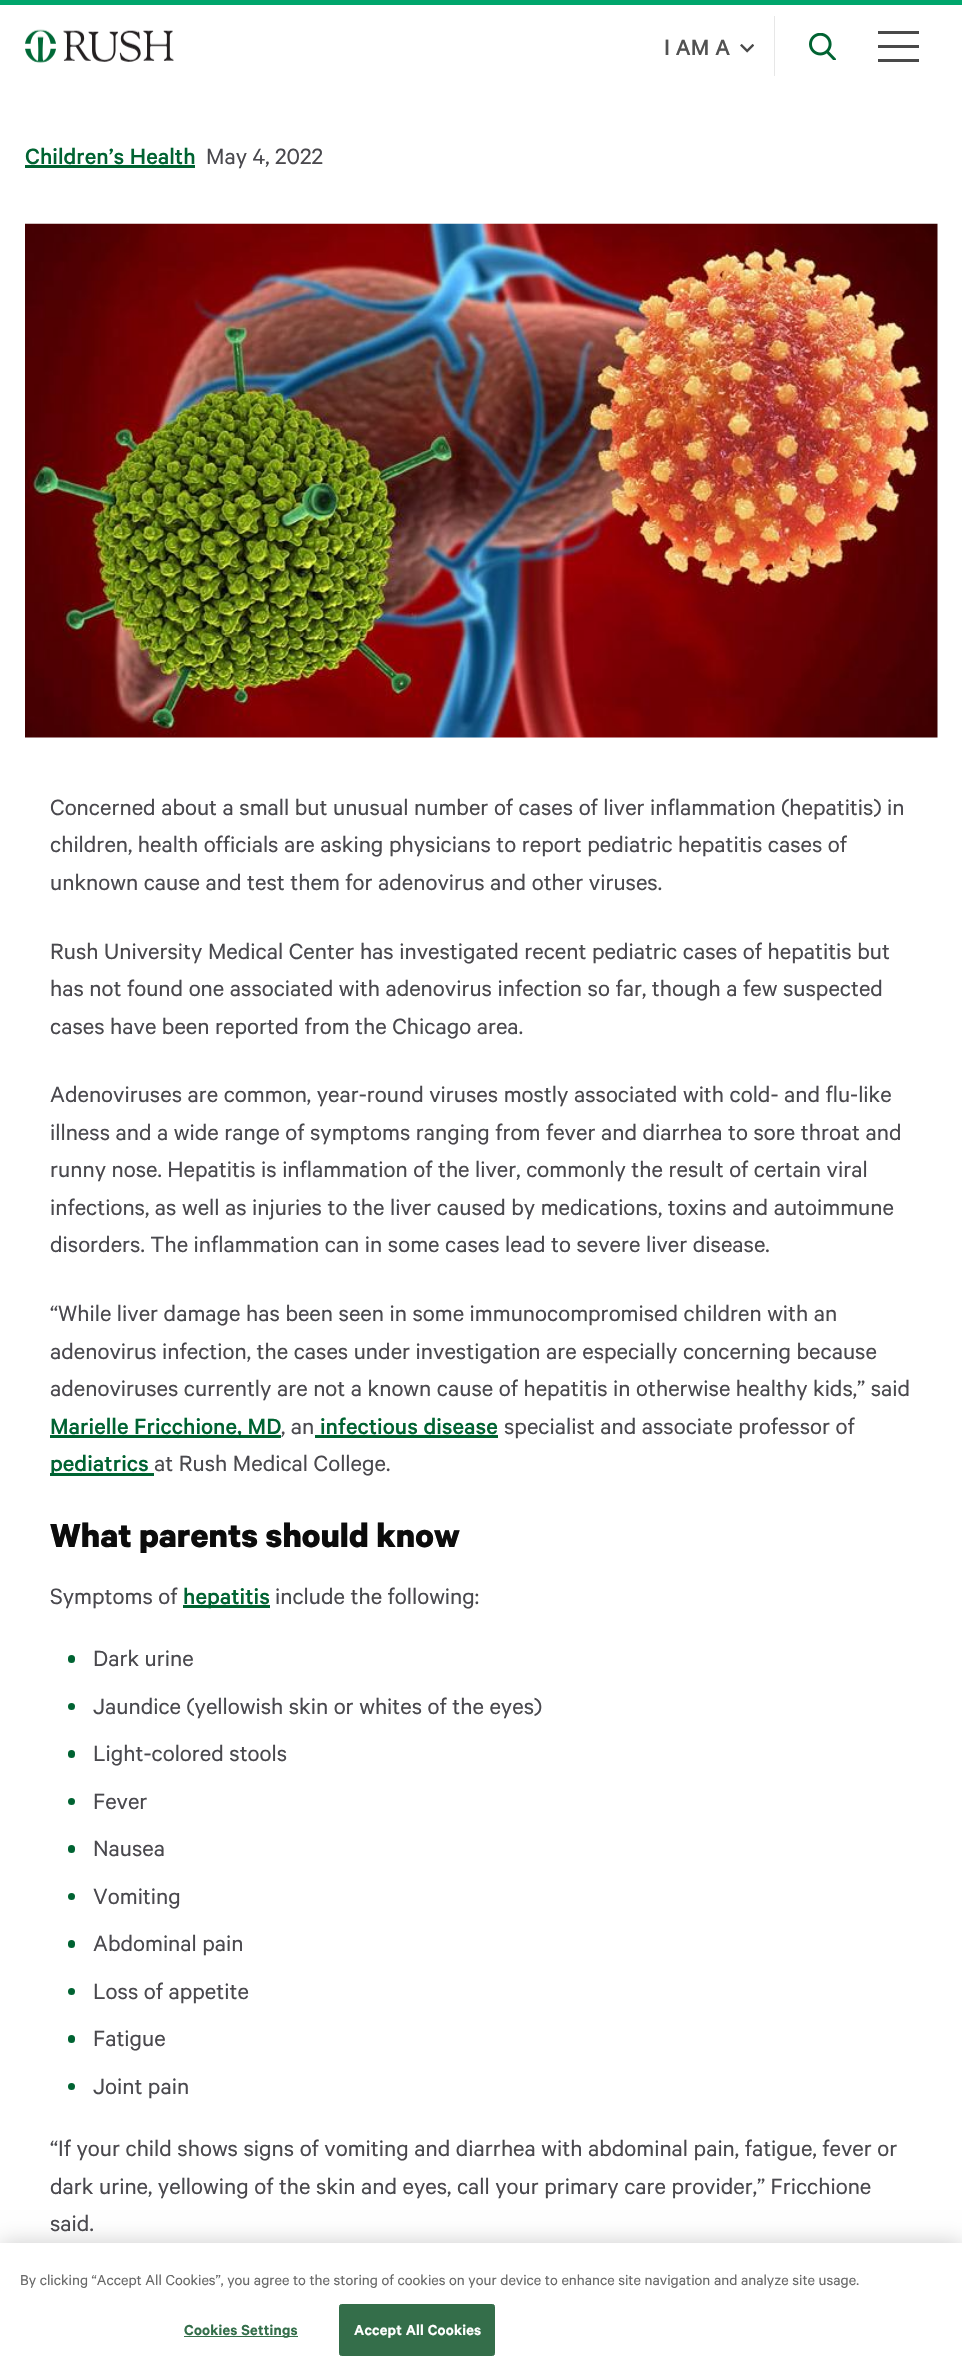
#include "include/core/SkBlurTypes.h"
#include "include/core/SkCanvas.h"
#include "include/core/SkData.h"
#include "include/core/SkFont.h"
#include "include/core/SkFontMgr.h"
#include "include/core/SkImage.h"
#include "include/core/SkMaskFilter.h"
#include "include/core/SkPaint.h"
#include "include/core/SkPathBuilder.h"
#include "include/core/SkTextBlob.h"
#include "include/effects/SkDashPathEffect.h"
#include "include/effects/SkGradientShader.h"
#include "include/utils/SkParsePath.h"

extern sk_sp<SkFontMgr> fontMgr;

void draw(SkCanvas* canvas) {
  SkPaint p;
  p.setAntiAlias(true);
  auto spacedText = [&](const char* s, float x, float y, const SkFont& font, const SkPaint& ink, float letter, float word) {
    std::vector<SkGlyphID> glyphs(font.countText(s, strlen(s), SkTextEncoding::kUTF8));
    std::vector<float> xs(glyphs.size());
    font.textToGlyphs(s, strlen(s), SkTextEncoding::kUTF8, glyphs);
    font.getXPos(glyphs, xs, x);
    float extra = 0;
    for (size_t i = 0; i < glyphs.size(); i++) {
      xs[i] += extra;
      extra += letter + word * (glyphs[i] == font.unicharToGlyph(' '));
    }
    canvas->drawTextBlob(SkTextBlob::MakeFromPosHGlyphs(glyphs, xs, y, font), 0, 0, ink);
  };
  canvas->clear(SK_ColorWHITE);
  p.setColor(SkColorSetRGB(0, 166, 108));
  canvas->drawRect(SkRect::MakeLTRB(0, 0, 962, 5), p);
  canvas->drawImageRect(SkImages::DeferredFromEncodedData(SkData::MakeFromFileName("images/1.png")), SkRect::MakeLTRB(25, 29, 174, 63), SkSamplingOptions());
  p.setColor(SkColorSetRGB(231, 231, 231));
  canvas->drawRect(SkRect::MakeLTRB(774, 16, 775, 76), p);
  canvas->drawImageRect(SkImages::DeferredFromEncodedData(SkData::MakeFromFileName("images/2.png")), SkRect::MakeLTRB(740, 44, 754, 53), SkSamplingOptions());
  canvas->drawImageRect(SkImages::DeferredFromEncodedData(SkData::MakeFromFileName("images/3.png")), SkRect::MakeLTRB(809, 33, 836, 60), SkSamplingOptions());
  p.setColor(SkColorSetRGB(73, 73, 73));
  canvas->drawRect(SkRect::MakeLTRB(878, 31, 919, 34), p);
  canvas->drawRect(SkRect::MakeLTRB(878, 45, 919, 48), p);
  canvas->drawRect(SkRect::MakeLTRB(878, 59, 919, 62), p);
  p.setColor(SkColorSetRGB(0, 99, 50));
  canvas->drawRect(SkRect::MakeLTRB(25, 165, 195, 168), p);
  canvas->drawImageRect(SkImages::DeferredFromEncodedData(SkData::MakeFromFileName("images/4.png")), SkRect::MakeLTRB(25, 223, 938, 738), SkSamplingOptions());
  canvas->drawRect(SkRect::MakeLTRB(50, 1435, 281, 1438), p);
  canvas->drawRect(SkRect::MakeLTRB(315, 1435, 498, 1438), p);
  canvas->drawRect(SkRect::MakeLTRB(50, 1473, 154, 1476), p);
  canvas->drawRect(SkRect::MakeLTRB(183, 1605, 270, 1608), p);
  canvas->drawRoundRect(SkRect::MakeLTRB(68, 1655, 75, 1663), 3.5f, 3.5f, p);
  canvas->drawCircle(71.5f, 1706.5f, 3.5f, p);
  canvas->drawRoundRect(SkRect::MakeLTRB(68, 1750, 75, 1758), 3.5f, 3.5f, p);
  canvas->drawCircle(71.5f, 1801.5f, 3.5f, p);
  canvas->drawRoundRect(SkRect::MakeLTRB(68, 1845, 75, 1853), 3.5f, 3.5f, p);
  canvas->drawCircle(71.5f, 1896.5f, 3.5f, p);
  canvas->drawRoundRect(SkRect::MakeLTRB(68, 1940, 75, 1948), 3.5f, 3.5f, p);
  canvas->drawCircle(71.5f, 1991.5f, 3.5f, p);
  canvas->drawRoundRect(SkRect::MakeLTRB(68, 2035, 75, 2043), 3.5f, 3.5f, p);
  canvas->drawCircle(71.5f, 2086.5f, 3.5f, p);
  p.setColor(SkColorSetARGB(51, 0, 0, 0));
  p.setMaskFilter(SkMaskFilter::MakeBlur(kNormal_SkBlurStyle, 11));
  canvas->drawRect(SkRect::MakeLTRB(0, 2243, 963, 2376), p);
  p.setMaskFilter(nullptr);
  p.setColor(SK_ColorWHITE);
  canvas->drawRect(SkRect::MakeLTRB(0, 2243, 962, 2376), p);
  p.setColor(SkColorSetRGB(52, 110, 74));
  canvas->drawRect(SkRect::MakeLTRB(184, 2336, 298, 2337), p);
  canvas->drawRoundRect(SkRect::MakeLTRB(339.5f, 2304.5f, 494.5f, 2355.5f), 2, 2, p);
  p.setStyle(SkPaint::kStroke_Style);
  p.setStrokeWidth(1);
  canvas->drawRoundRect(SkRect::MakeLTRB(339.5f, 2304.5f, 494.5f, 2355.5f), 2, 2, p);
  SkFont font1(fontMgr->matchFamilyStyle("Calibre", SkFontStyle(500, SkFontStyle::kNormal_Width, SkFontStyle::kUpright_Slant)), 25);
  font1.setSubpixel(true);
  p.setStyle(SkPaint::kFill_Style);
  p.setColor(SkColorSetRGB(82, 82, 82));
  canvas->drawString("I AM A", 664, 55, font1, p);
  p.setColor(SkColorSetRGB(0, 99, 50));
  canvas->drawString("Children’s Health", 25, 164, font1, p);
  SkFont font2(fontMgr->matchFamilyStyle("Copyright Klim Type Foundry", SkFontStyle::Normal()), 25);
  font2.setSubpixel(true);
  p.setColor(SkColorSetRGB(74, 73, 78));
  canvas->drawString("May 4, 2022", 206, 164, font2, p);
  canvas->drawString("Concerned about a small but unusual number of cases of liver inflammation (hepatitis) in", 50, 815, font2, p);
  canvas->drawString("children, health officials are asking physicians to report pediatric hepatitis cases of", 50, 852, font2, p);
  canvas->drawString("unknown cause and test them for adenovirus and other viruses.", 50, 890, font2, p);
  canvas->drawString("Rush University Medical Center has investigated recent pediatric cases of hepatitis but", 50, 959, font2, p);
  canvas->drawString("has not found one associated with adenovirus infection so far, though a few suspected", 50, 996, font2, p);
  canvas->drawString("cases have been reported from the Chicago area.", 50, 1034, font2, p);
  canvas->drawString("Adenoviruses are common, year-round viruses mostly associated with cold- and flu-like", 50, 1102, font2, p);
  canvas->drawString("illness and a wide range of symptoms ranging from fever and diarrhea to sore throat and", 50, 1140, font2, p);
  canvas->drawString("runny nose. Hepatitis is inflammation of the liver, commonly the result of certain viral", 50, 1177, font2, p);
  canvas->drawString("infections, as well as injuries to the liver caused by medications, toxins and autoimmune", 50, 1215, font2, p);
  canvas->drawString("disorders. The inflammation can in some cases lead to severe liver disease.", 50, 1252, font2, p);
  canvas->drawString("“While liver damage has been seen in some immunocompromised children with an", 50, 1321, font2, p);
  canvas->drawString("adenovirus infection, the cases under investigation are especially concerning because", 50, 1359, font2, p);
  canvas->drawString("adenoviruses currently are not a known cause of hepatitis in otherwise healthy kids,” said", 50, 1396, font2, p);
  p.setColor(SkColorSetRGB(0, 99, 50));
  canvas->drawString("Marielle Fricchione, MD", 50, 1434, font1, p);
  p.setColor(SkColorSetRGB(74, 73, 78));
  canvas->drawString(", an", 281, 1434, font2, p);
  p.setColor(SkColorSetRGB(0, 99, 50));
  canvas->drawString("infectious disease", 320, 1434, font1, p);
  p.setColor(SkColorSetRGB(74, 73, 78));
  canvas->drawString("specialist and associate professor of", 504, 1434, font2, p);
  p.setColor(SkColorSetRGB(0, 99, 50));
  canvas->drawString("pediatrics", 50, 1471, font1, p);
  p.setColor(SkColorSetRGB(74, 73, 78));
  canvas->drawString("at Rush Medical College.", 154, 1471, font2, p);
  SkFont font3(fontMgr->matchFamilyStyle("Copyright Klim Type Foundry", SkFontStyle::Bold()), 37.5f);
  font3.setSubpixel(true);
  p.setColor(SkColorSetRGB(12, 12, 12));
  canvas->drawString("What parents should know", 50, 1547, font3, p);
  p.setColor(SkColorSetRGB(74, 73, 78));
  canvas->drawString("Symptoms of", 50, 1604, font2, p);
  p.setColor(SkColorSetRGB(0, 99, 50));
  canvas->drawString("hepatitis", 183, 1604, font1, p);
  p.setColor(SkColorSetRGB(74, 73, 78));
  canvas->drawString("include the following:", 275, 1604, font2, p);
  canvas->drawString("Dark urine", 93, 1666, font2, p);
  canvas->drawString("Jaundice (yellowish skin or whites of the eyes)", 93, 1714, font2, p);
  canvas->drawString("Light-colored stools", 93, 1761, font2, p);
  canvas->drawString("Fever", 93, 1809, font2, p);
  canvas->drawString("Nausea", 93, 1856, font2, p);
  canvas->drawString("Vomiting", 93, 1904, font2, p);
  canvas->drawString("Abdominal pain", 93, 1951, font2, p);
  canvas->drawString("Loss of appetite", 93, 1999, font2, p);
  canvas->drawString("Fatigue", 93, 2046, font2, p);
  canvas->drawString("Joint pain", 93, 2094, font2, p);
  canvas->drawString("“If your child shows signs of vomiting and diarrhea with abdominal pain, fatigue, fever or", 50, 2156, font2, p);
  canvas->drawString("dark urine, yellowing of the skin and eyes, call your primary care provider,” Fricchione", 50, 2194, font2, p);
  canvas->drawString("said.", 50, 2231, font2, p);
  SkFont font4(fontMgr->matchFamilyStyle("Copyright Klim Type Foundry", SkFontStyle::Normal()), 16.25f);
  font4.setSubpixel(true);
  p.setColor(SkColorSetRGB(105, 105, 105));
  canvas->drawString("By clicking “Accept All Cookies”, you agree to the storing of cookies on your device to enhance site navigation and analyze site usage.", 20, 2285, font4, p);
  SkFont font5(fontMgr->matchFamilyStyle("Calibre", SkFontStyle(600, SkFontStyle::kNormal_Width, SkFontStyle::kUpright_Slant)), 16.25f);
  font5.setSubpixel(true);
  p.setColor(SkColorSetRGB(52, 110, 74));
  spacedText("Cookies Settings", 184, 2335, font5, p, 0.2f, 0);
  p.setColor(SK_ColorWHITE);
  spacedText("Accept All Cookies", 354, 2335, font5, p, 0.2f, 0);
}
